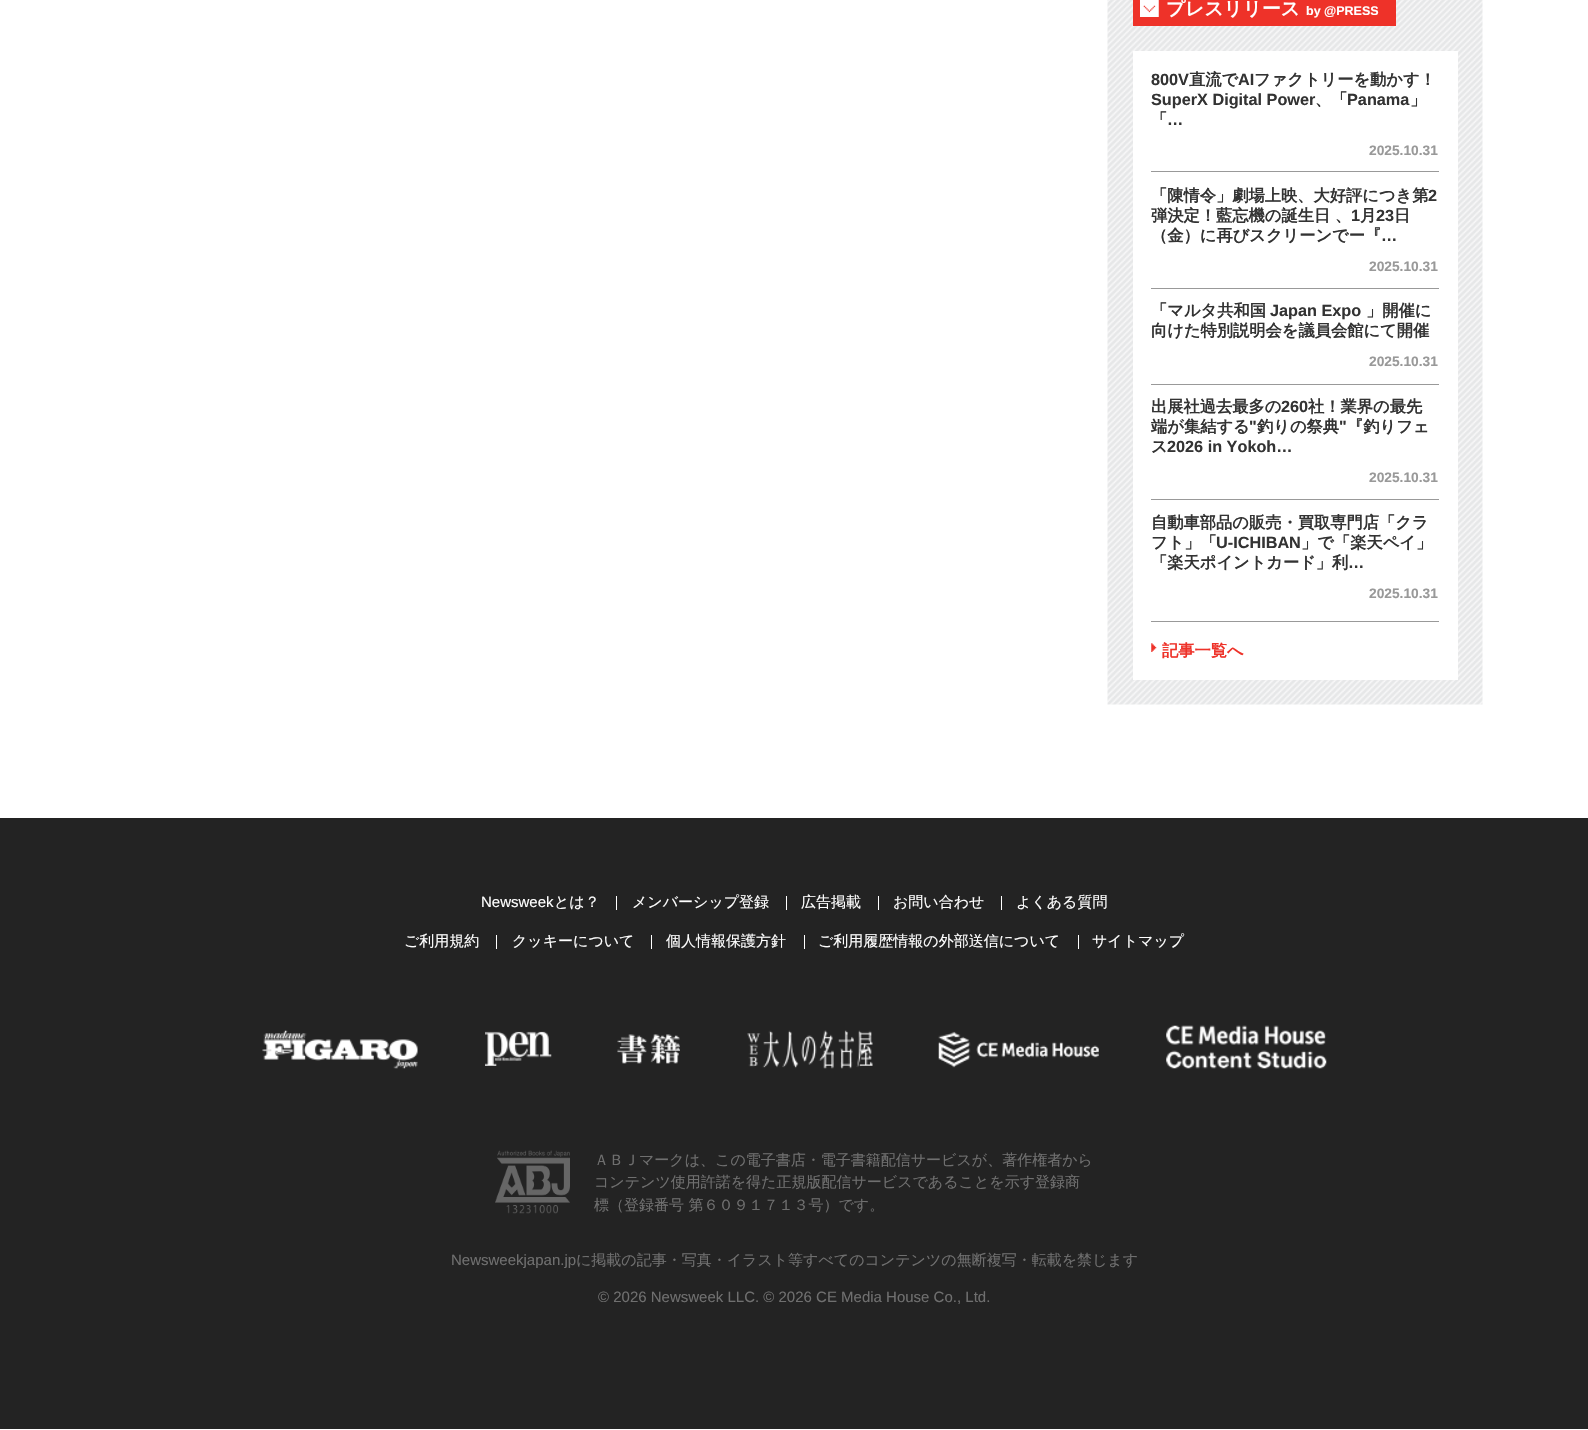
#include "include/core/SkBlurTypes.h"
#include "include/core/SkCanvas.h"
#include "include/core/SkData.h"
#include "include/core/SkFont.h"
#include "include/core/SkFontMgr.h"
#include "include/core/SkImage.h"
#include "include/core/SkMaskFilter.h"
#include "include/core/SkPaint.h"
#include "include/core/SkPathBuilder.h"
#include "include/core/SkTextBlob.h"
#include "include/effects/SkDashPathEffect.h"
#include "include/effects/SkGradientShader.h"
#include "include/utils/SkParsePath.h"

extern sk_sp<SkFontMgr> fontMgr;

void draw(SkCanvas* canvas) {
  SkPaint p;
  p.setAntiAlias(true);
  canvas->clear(SK_ColorWHITE);
  canvas->drawImageRect(SkImages::DeferredFromEncodedData(SkData::MakeFromFileName("images/1.png")), SkRect::MakeLTRB(1107, 0, 1483, 705), SkSamplingOptions());
  p.setColor(SkColorSetRGB(238, 50, 41));
  canvas->drawRect(SkRect::MakeLTRB(1133, 0, 1396, 26), p);
  canvas->drawImageRect(SkImages::DeferredFromEncodedData(SkData::MakeFromFileName("images/2.png")), SkRect::MakeLTRB(1140, 0, 1159, 17), SkSamplingOptions());
  p.setColor(SK_ColorWHITE);
  canvas->drawRect(SkRect::MakeLTRB(1133, 51, 1458, 680), p);
  p.setColor(SkColorSetRGB(153, 153, 153));
  canvas->drawRect(SkRect::MakeLTRB(1151, 621, 1439, 622), p);
  canvas->drawRect(SkRect::MakeLTRB(1151, 171, 1439, 172), p);
  canvas->drawRect(SkRect::MakeLTRB(1151, 288, 1439, 289), p);
  canvas->drawRect(SkRect::MakeLTRB(1151, 384, 1439, 385), p);
  canvas->drawRect(SkRect::MakeLTRB(1151, 499, 1439, 500), p);
  canvas->drawImageRect(SkImages::DeferredFromEncodedData(SkData::MakeFromFileName("images/3.png")), SkRect::MakeLTRB(1151, 643, 1157, 652), SkSamplingOptions());
  p.setColor(SkColorSetRGB(35, 35, 35));
  canvas->drawRect(SkRect::MakeLTRB(0, 818, 1588, 1429), p);
  p.setColor(SK_ColorWHITE);
  canvas->drawRect(SkRect::MakeLTRB(616, 896, 617, 910), p);
  canvas->drawRect(SkRect::MakeLTRB(786, 896, 787, 910), p);
  canvas->drawRect(SkRect::MakeLTRB(878, 896, 879, 910), p);
  canvas->drawRect(SkRect::MakeLTRB(1001, 896, 1002, 910), p);
  canvas->drawRect(SkRect::MakeLTRB(496, 935, 497, 949), p);
  canvas->drawRect(SkRect::MakeLTRB(651, 935, 652, 949), p);
  canvas->drawRect(SkRect::MakeLTRB(804, 935, 805, 949), p);
  canvas->drawRect(SkRect::MakeLTRB(1078, 935, 1079, 949), p);
  canvas->drawImageRect(SkImages::DeferredFromEncodedData(SkData::MakeFromFileName("images/4.png")), SkRect::MakeLTRB(262, 1030, 418, 1069), SkSamplingOptions());
  canvas->drawImageRect(SkImages::DeferredFromEncodedData(SkData::MakeFromFileName("images/5.png")), SkRect::MakeLTRB(485, 1031, 552, 1066), SkSamplingOptions());
  canvas->drawImageRect(SkImages::DeferredFromEncodedData(SkData::MakeFromFileName("images/6.png")), SkRect::MakeLTRB(617, 1034, 680, 1064), SkSamplingOptions());
  canvas->drawImageRect(SkImages::DeferredFromEncodedData(SkData::MakeFromFileName("images/7.png")), SkRect::MakeLTRB(747, 1030, 873, 1069), SkSamplingOptions());
  canvas->drawImageRect(SkImages::DeferredFromEncodedData(SkData::MakeFromFileName("images/8.png")), SkRect::MakeLTRB(938, 1031, 1099, 1068), SkSamplingOptions());
  canvas->drawImageRect(SkImages::DeferredFromEncodedData(SkData::MakeFromFileName("images/9.png")), SkRect::MakeLTRB(1166, 1025, 1327, 1069), SkSamplingOptions());
  canvas->drawImageRect(SkImages::DeferredFromEncodedData(SkData::MakeFromFileName("images/10.png")), SkRect::MakeLTRB(495, 1150, 570, 1214), SkSamplingOptions());
  SkFont font1(fontMgr->matchFamilyStyle("WenQuanYi Zen Hei", SkFontStyle::Bold()), 18.75f);
  font1.setSubpixel(true);
  canvas->drawString("プレスリリース", 1166, 15, font1, p);
  SkFont font2(fontMgr->matchFamilyStyle("Liberation Sans", SkFontStyle::Bold()), 12.5f);
  font2.setSubpixel(true);
  canvas->drawString("by @PRESS", 1306, 15, font2, p);
  SkFont font3(fontMgr->matchFamilyStyle("Liberation Sans", SkFontStyle::Bold()), 16.25f);
  font3.setSubpixel(true);
  p.setColor(SkColorSetRGB(51, 51, 51));
  canvas->drawString("800V", 1151, 85, font3, p);
  SkFont font4(fontMgr->matchFamilyStyle("WenQuanYi Zen Hei", SkFontStyle::Bold()), 16.25f);
  font4.setSubpixel(true);
  canvas->drawString("直流で", 1189, 85, font4, p);
  canvas->drawString("AI", 1238, 85, font3, p);
  canvas->drawString("ファクトリーを動かす！", 1254, 85, font4, p);
  canvas->drawString("SuperX Digital Power", 1151, 105, font3, p);
  canvas->drawString("、「", 1315, 105, font4, p);
  canvas->drawString("Panama", 1347, 105, font3, p);
  canvas->drawString("」", 1410, 105, font4, p);
  canvas->drawString("「", 1151, 125, font4, p);
  canvas->drawString("…", 1167, 125, font3, p);
  SkFont font5(fontMgr->matchFamilyStyle("Liberation Sans", SkFontStyle::Bold()), 13.75f);
  font5.setSubpixel(true);
  p.setColor(SkColorSetRGB(153, 153, 153));
  canvas->drawString("2025.10.31", 1369, 155, font5, p);
  p.setColor(SkColorSetRGB(51, 51, 51));
  canvas->drawString("「陳情令」劇場上映、大好評につき第", 1151, 201, font4, p);
  canvas->drawString("2", 1428, 201, font3, p);
  canvas->drawString("弾決定！藍忘機の誕生日 、", 1151, 221, font4, p);
  canvas->drawString("1", 1351, 221, font3, p);
  canvas->drawString("月", 1360, 221, font4, p);
  canvas->drawString("23", 1376, 221, font3, p);
  canvas->drawString("日", 1394, 221, font4, p);
  canvas->drawString("（金）に再びスクリーンでー『", 1151, 241, font4, p);
  canvas->drawString("…", 1381, 241, font3, p);
  p.setColor(SkColorSetRGB(153, 153, 153));
  canvas->drawString("2025.10.31", 1369, 271, font5, p);
  p.setColor(SkColorSetRGB(51, 51, 51));
  canvas->drawString("「マルタ共和国", 1151, 316, font4, p);
  canvas->drawString("Japan Expo", 1270, 316, font3, p);
  canvas->drawString("」開催に", 1366, 316, font4, p);
  canvas->drawString("向けた特別説明会を議員会館にて開催", 1151, 336, font4, p);
  p.setColor(SkColorSetRGB(153, 153, 153));
  canvas->drawString("2025.10.31", 1369, 366, font5, p);
  p.setColor(SkColorSetRGB(51, 51, 51));
  canvas->drawString("出展社過去最多の", 1151, 412, font4, p);
  canvas->drawString("260", 1281, 412, font3, p);
  canvas->drawString("社！業界の最先", 1308, 412, font4, p);
  canvas->drawString("端が集結する", 1151, 432, font4, p);
  canvas->drawString("\"", 1249, 432, font3, p);
  canvas->drawString("釣りの祭典", 1257, 432, font4, p);
  canvas->drawString("\"", 1339, 432, font3, p);
  canvas->drawString("『釣りフェ", 1347, 432, font4, p);
  canvas->drawString("ス", 1151, 452, font4, p);
  canvas->drawString("2026 in Yokoh…", 1167, 452, font3, p);
  p.setColor(SkColorSetRGB(153, 153, 153));
  canvas->drawString("2025.10.31", 1369, 482, font5, p);
  p.setColor(SkColorSetRGB(51, 51, 51));
  canvas->drawString("自動車部品の販売・買取専門店「クラ", 1151, 528, font4, p);
  canvas->drawString("フト」「", 1151, 548, font4, p);
  canvas->drawString("U-ICHIBAN", 1216, 548, font3, p);
  canvas->drawString("」で「楽天ペイ」", 1301, 548, font4, p);
  canvas->drawString("「楽天ポイントカード」利", 1151, 568, font4, p);
  canvas->drawString("…", 1348, 568, font3, p);
  p.setColor(SkColorSetRGB(153, 153, 153));
  canvas->drawString("2025.10.31", 1369, 598, font5, p);
  p.setColor(SkColorSetRGB(238, 50, 41));
  canvas->drawString("記事一覧へ", 1162, 656, font4, p);
  SkFont font6(fontMgr->matchFamilyStyle("Liberation Sans", SkFontStyle::Normal()), 15);
  font6.setSubpixel(true);
  p.setColor(SK_ColorWHITE);
  canvas->drawString("Newsweek", 481, 907, font6, p);
  SkFont font7(fontMgr->matchFamilyStyle("WenQuanYi Zen Hei", SkFontStyle(500, SkFontStyle::kNormal_Width, SkFontStyle::kUpright_Slant)), 15);
  font7.setSubpixel(true);
  canvas->drawString("とは？", 554, 907, font7, p);
  canvas->drawString("メンバーシップ登録", 632, 907, font7, p);
  canvas->drawString("広告掲載", 801, 907, font7, p);
  canvas->drawString("お問い合わせ", 893, 907, font7, p);
  canvas->drawString("よくある質問", 1016, 907, font7, p);
  canvas->drawString("ご利用規約", 404, 946, font7, p);
  canvas->drawString("クッキーについて", 512, 946, font7, p);
  canvas->drawString("個人情報保護方針", 666, 946, font7, p);
  canvas->drawString("ご利用履歴情報の外部送信について", 818, 946, font7, p);
  canvas->drawString("サイトマップ", 1092, 946, font7, p);
  p.setColor(SkColorSetRGB(111, 111, 111));
  canvas->drawString("ＡＢＪマークは、この電子書店・電子書籍配信サービスが、著作権者から", 594, 1165, font7, p);
  canvas->drawString("コンテンツ使用許諾を得た正規版配信サービスであることを示す登録商", 594, 1187, font7, p);
  canvas->drawString("標（登録番号 第６０９１７１３号）です。", 594, 1210, font7, p);
  canvas->drawString("Newsweekjapan.jp", 451, 1265, font6, p);
  canvas->drawString("に掲載の記事・写真・イラスト等すべてのコンテンツの無断複写・転載を禁じます", 576, 1265, font7, p);
  canvas->drawString("© 2026 Newsweek LLC. © 2026 CE Media House Co., Ltd.", 598, 1302, font6, p);
}
